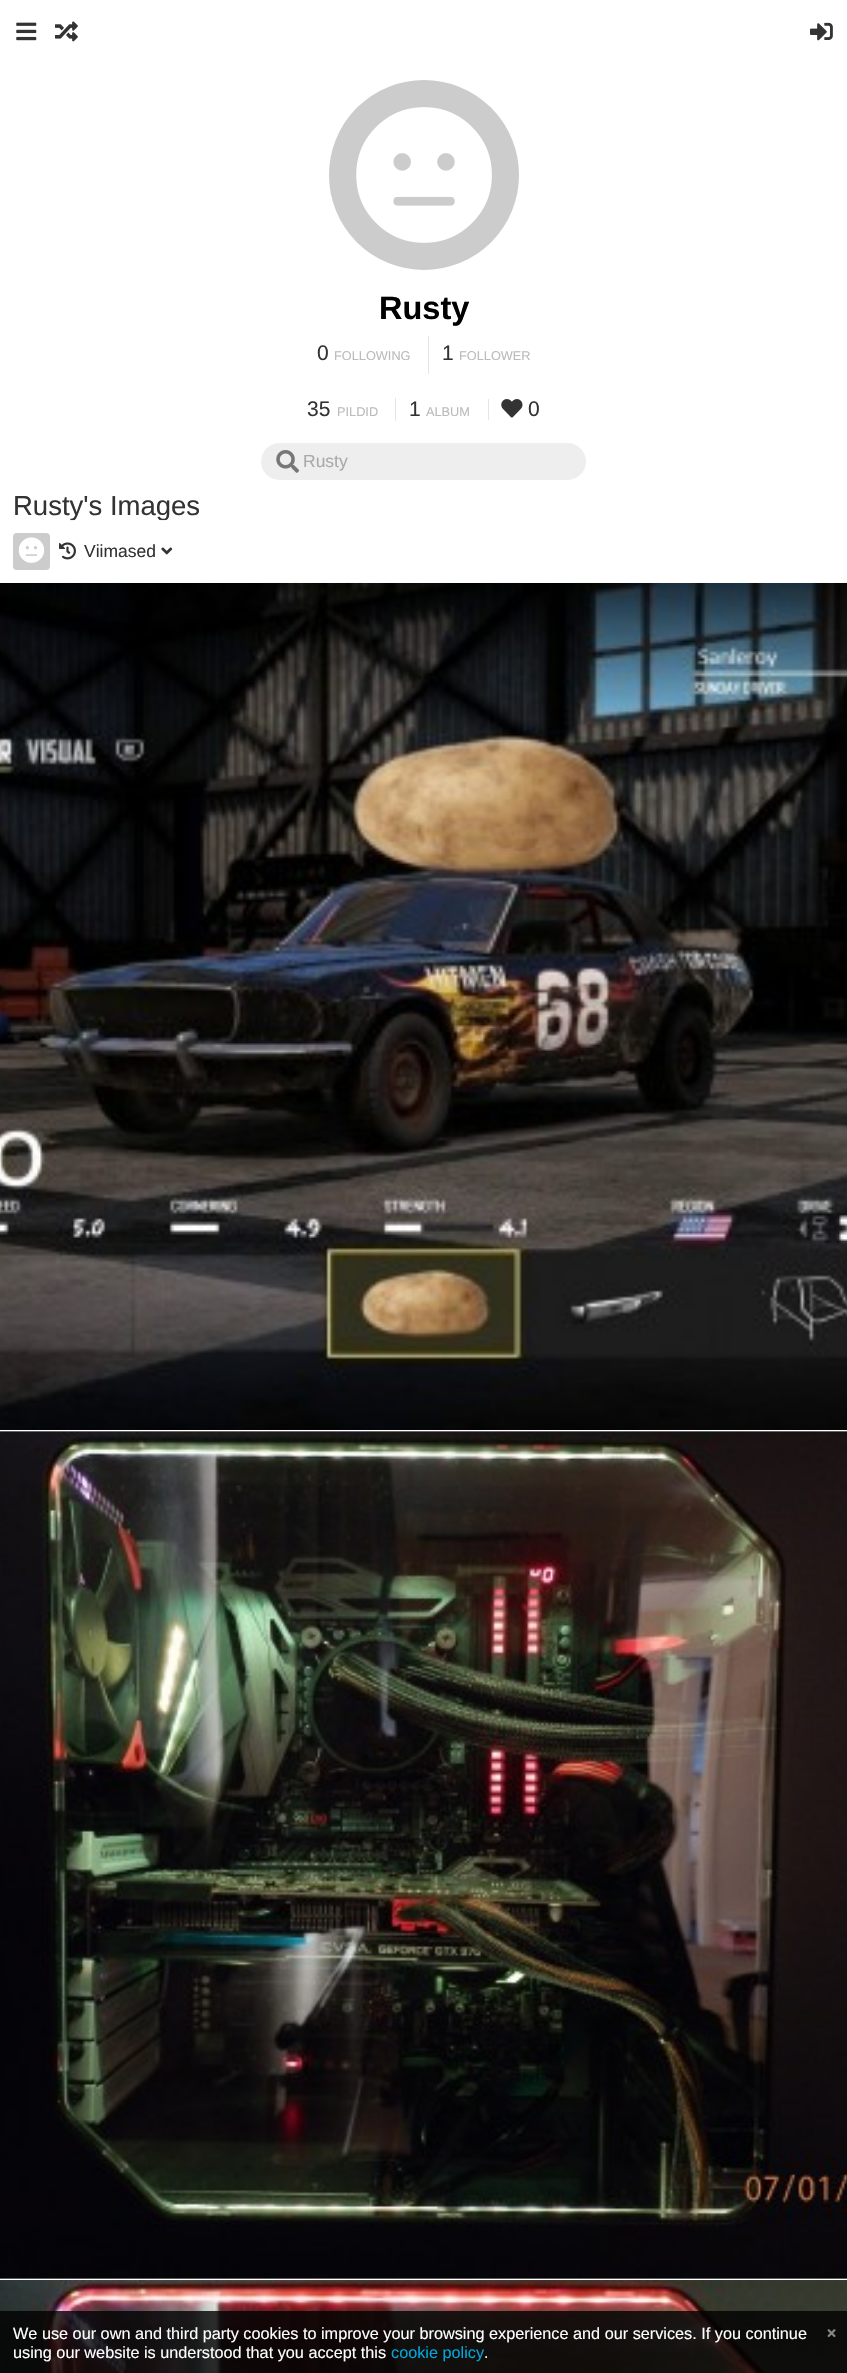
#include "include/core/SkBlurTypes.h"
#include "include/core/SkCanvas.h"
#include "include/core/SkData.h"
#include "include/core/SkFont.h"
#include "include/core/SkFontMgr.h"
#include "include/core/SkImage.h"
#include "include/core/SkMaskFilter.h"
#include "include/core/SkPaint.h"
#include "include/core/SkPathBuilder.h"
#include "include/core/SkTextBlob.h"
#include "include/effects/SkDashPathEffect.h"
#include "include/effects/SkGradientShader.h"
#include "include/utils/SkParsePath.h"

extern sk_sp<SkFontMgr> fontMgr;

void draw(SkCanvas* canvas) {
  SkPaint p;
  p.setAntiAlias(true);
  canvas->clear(SK_ColorWHITE);
  canvas->drawImageRect(SkImages::DeferredFromEncodedData(SkData::MakeFromFileName("images/1.png")), SkRect::MakeLTRB(16, 22, 37, 41), SkSamplingOptions());
  canvas->drawImageRect(SkImages::DeferredFromEncodedData(SkData::MakeFromFileName("images/2.png")), SkRect::MakeLTRB(55, 21, 78, 42), SkSamplingOptions());
  canvas->drawImageRect(SkImages::DeferredFromEncodedData(SkData::MakeFromFileName("images/3.png")), SkRect::MakeLTRB(810, 22, 833, 41), SkSamplingOptions());
  p.setColor(SkColorSetRGB(204, 204, 204));
  canvas->drawCircle(424, 175, 97.5f, p);
  p.setStyle(SkPaint::kStroke_Style);
  p.setStrokeWidth(5);
  p.setColor(SK_ColorWHITE);
  canvas->drawCircle(424, 175, 97.5f, p);
  canvas->drawImageRect(SkImages::DeferredFromEncodedData(SkData::MakeFromFileName("images/4.png")), SkRect::MakeLTRB(356, 107, 492, 243), SkSamplingOptions());
  p.setStyle(SkPaint::kFill_Style);
  p.setColor(SkColorSetRGB(229, 229, 229));
  canvas->drawRect(SkRect::MakeLTRB(428, 336, 429, 374), p);
  canvas->drawRect(SkRect::MakeLTRB(395, 398, 396, 421), p);
  canvas->drawRect(SkRect::MakeLTRB(488, 399, 489, 420), p);
  canvas->drawImageRect(SkImages::DeferredFromEncodedData(SkData::MakeFromFileName("images/5.png")), SkRect::MakeLTRB(501, 399, 523, 418), SkSamplingOptions());
  p.setColor(SkColorSetRGB(238, 238, 238));
  canvas->drawRoundRect(SkRect::MakeLTRB(261, 443, 586, 480), 18.5f, 18.5f, p);
  canvas->drawImageRect(SkImages::DeferredFromEncodedData(SkData::MakeFromFileName("images/6.png")), SkRect::MakeLTRB(276, 450, 300, 473), SkSamplingOptions());
  canvas->drawImageRect(SkImages::DeferredFromEncodedData(SkData::MakeFromFileName("images/10.png")), SkRect::MakeLTRB(0, 582, 847, 1430), SkSamplingOptions());
  p.setColor(SkColorSetRGB(204, 204, 204));
  canvas->drawRect(SkRect::MakeLTRB(0, 1431, 847, 2279), p);
  canvas->drawImageRect(SkImages::DeferredFromEncodedData(SkData::MakeFromFileName("images/11.png")), SkRect::MakeLTRB(0, 1431, 847, 2279), SkSamplingOptions());
  canvas->drawImageRect(SkImages::DeferredFromEncodedData(SkData::MakeFromFileName("images/12.png")), SkRect::MakeLTRB(0, 2280, 847, 2373), SkSamplingOptions());
  p.setColor(SkColorSetARGB(204, 0, 0, 0));
  canvas->drawRect(SkRect::MakeLTRB(0, 2311, 847, 2373), p);
  canvas->drawImageRect(SkImages::DeferredFromEncodedData(SkData::MakeFromFileName("images/13.png")), SkRect::MakeLTRB(827, 2329, 836, 2338), SkSamplingOptions());
  SkFont font1(fontMgr->matchFamilyStyle("Liberation Sans", SkFontStyle::Bold()), 32.5f);
  font1.setSubpixel(true);
  p.setColor(SK_ColorBLACK);
  canvas->drawString("Rusty", 379, 319, font1, p);
  SkFont font2(fontMgr->matchFamilyStyle("Liberation Sans", SkFontStyle::Normal()), 21);
  font2.setSubpixel(true);
  p.setColor(SkColorSetRGB(51, 51, 51));
  canvas->drawString("0", 317, 360, font2, p);
  SkFont font3(fontMgr->matchFamilyStyle("Liberation Sans", SkFontStyle::Normal()), 12.75f);
  font3.setSubpixel(true);
  p.setColor(SkColorSetRGB(187, 187, 187));
  canvas->drawString("FOLLOWING", 334, 360, font3, p);
  p.setColor(SkColorSetRGB(51, 51, 51));
  canvas->drawString("1", 442, 360, font2, p);
  p.setColor(SkColorSetRGB(187, 187, 187));
  canvas->drawString("FOLLOWER", 459, 360, font3, p);
  p.setColor(SkColorSetRGB(51, 51, 51));
  canvas->drawString("35", 307, 416, font2, p);
  p.setColor(SkColorSetRGB(187, 187, 187));
  canvas->drawString("PILDID", 337, 416, font3, p);
  p.setColor(SkColorSetRGB(51, 51, 51));
  canvas->drawString("1", 409, 416, font2, p);
  p.setColor(SkColorSetRGB(187, 187, 187));
  canvas->drawString("ALBUM", 426, 416, font3, p);
  p.setColor(SkColorSetRGB(51, 51, 51));
  canvas->drawString("0", 528, 416, font2, p);
  SkFont font4(fontMgr->matchFamilyStyle("Liberation Sans", SkFontStyle::Normal()), 17.5f);
  font4.setSubpixel(true);
  p.setColor(SkColorSetRGB(170, 170, 170));
  canvas->drawString("Rusty", 303, 467, font4, p);
  SkFont font5(fontMgr->matchFamilyStyle("Liberation Sans", SkFontStyle::Normal()), 27.5f);
  font5.setSubpixel(true);
  p.setColor(SkColorSetRGB(51, 51, 51));
  canvas->drawString("Rusty's Images", 13, 515, font5, p);
  p.setColor(SkColorSetARGB(230, 255, 255, 255));
  canvas->drawRect(SkRect::MakeLTRB(0, 520, 847, 583), p);
  p.setColor(SkColorSetRGB(204, 204, 204));
  canvas->drawRoundRect(SkRect::MakeLTRB(13, 533, 50, 570), 4, 4, p);
  canvas->drawImageRect(SkImages::DeferredFromEncodedData(SkData::MakeFromFileName("images/7.png")), SkRect::MakeLTRB(18, 537, 45, 563), SkSamplingOptions());
  canvas->drawImageRect(SkImages::DeferredFromEncodedData(SkData::MakeFromFileName("images/8.png")), SkRect::MakeLTRB(59, 542, 76, 560), SkSamplingOptions());
  p.setColor(SkColorSetRGB(51, 51, 51));
  canvas->drawString("Viimased", 84, 557, font4, p);
  canvas->drawImageRect(SkImages::DeferredFromEncodedData(SkData::MakeFromFileName("images/9.png")), SkRect::MakeLTRB(161, 547, 173, 555), SkSamplingOptions());
  SkFont font6(fontMgr->matchFamilyStyle("Liberation Sans", SkFontStyle::Normal()), 16.25f);
  font6.setSubpixel(true);
  p.setColor(SK_ColorWHITE);
  canvas->drawString("We use our own and third party cookies to improve your browsing experience and our services. If you continue", 13, 2339, font6, p);
  canvas->drawString("using our website is understood that you accept this", 13, 2358, font6, p);
  p.setColor(SkColorSetRGB(0, 167, 218));
  canvas->drawString("cookie policy", 391, 2358, font6, p);
  p.setColor(SK_ColorWHITE);
  canvas->drawString(".", 484, 2358, font6, p);
}
